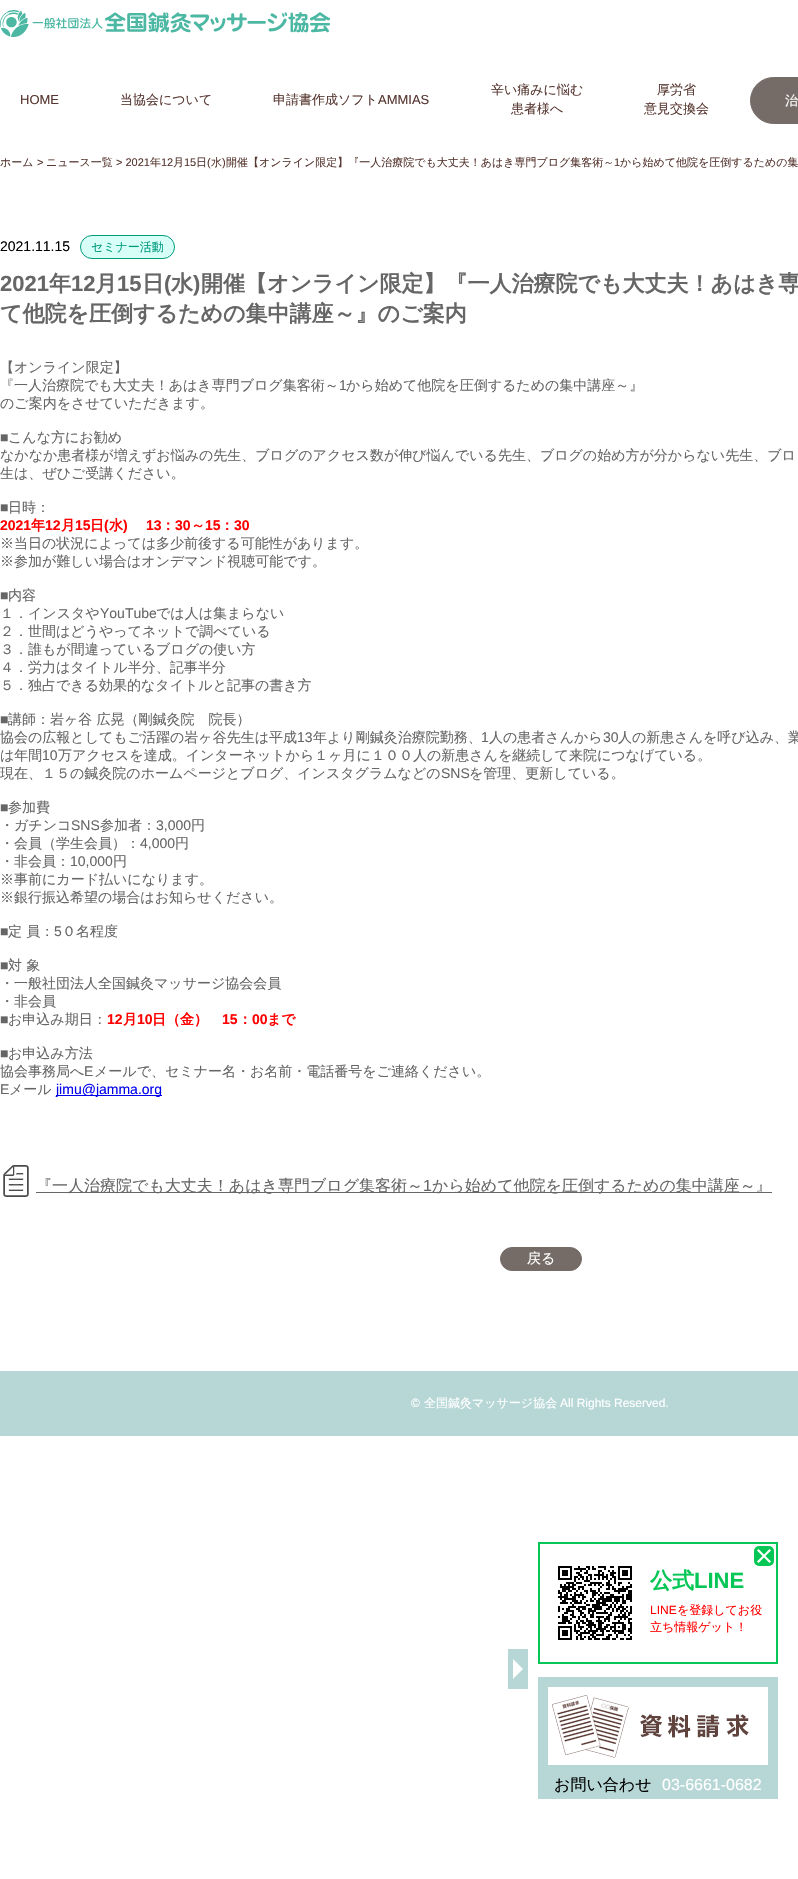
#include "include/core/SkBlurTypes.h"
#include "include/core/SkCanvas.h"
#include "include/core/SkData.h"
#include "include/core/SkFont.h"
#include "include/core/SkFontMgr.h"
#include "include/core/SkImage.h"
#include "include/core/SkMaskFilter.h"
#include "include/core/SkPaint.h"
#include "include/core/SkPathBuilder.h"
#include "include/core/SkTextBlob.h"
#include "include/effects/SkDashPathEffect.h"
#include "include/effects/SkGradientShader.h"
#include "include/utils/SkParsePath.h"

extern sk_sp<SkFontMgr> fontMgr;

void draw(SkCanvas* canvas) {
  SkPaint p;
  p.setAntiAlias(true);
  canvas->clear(SK_ColorWHITE);
  canvas->drawImageRect(SkImages::DeferredFromEncodedData(SkData::MakeFromFileName("images/1.png")), SkRect::MakeLTRB(0, 10, 330, 37), SkSamplingOptions());
  p.setColor(SkColorSetRGB(117, 108, 103));
  canvas->drawRoundRect(SkRect::MakeLTRB(750.5f, 77.5f, 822.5f, 123.5f), 23, 23, p);
  p.setStyle(SkPaint::kStroke_Style);
  p.setStrokeWidth(1);
  canvas->drawRoundRect(SkRect::MakeLTRB(750.5f, 77.5f, 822.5f, 123.5f), 23, 23, p);
  p.setStyle(SkPaint::kFill_Style);
  p.setColor(SkColorSetRGB(183, 215, 214));
  canvas->drawRect(SkRect::MakeLTRB(538, 1677, 778, 1799), p);
  canvas->drawImageRect(SkImages::DeferredFromEncodedData(SkData::MakeFromFileName("images/2.png")), SkRect::MakeLTRB(548, 1687, 768, 1765), SkSamplingOptions());
  p.setColor(SkColorSetRGB(215, 255, 247));
  canvas->drawRoundRect(SkRect::MakeLTRB(80.5f, 235.5f, 174.5f, 258.5f), 11.5f, 11.5f, p);
  p.setStyle(SkPaint::kStroke_Style);
  p.setColor(SkColorSetRGB(0, 154, 125));
  canvas->drawRoundRect(SkRect::MakeLTRB(80.5f, 235.5f, 174.5f, 258.5f), 11.5f, 11.5f, p);
  p.setStyle(SkPaint::kFill_Style);
  p.setColor(SkColorSetRGB(0, 0, 238));
  canvas->drawRect(SkRect::MakeLTRB(56, 1095, 162, 1096), p);
  canvas->drawImageRect(SkImages::DeferredFromEncodedData(SkData::MakeFromFileName("images/3.png")), SkRect::MakeLTRB(3, 1165, 29, 1197), SkSamplingOptions());
  p.setColor(SkColorSetRGB(102, 102, 102));
  canvas->drawRect(SkRect::MakeLTRB(36, 1192, 772, 1193), p);
  p.setColor(SkColorSetRGB(117, 108, 103));
  canvas->drawRoundRect(SkRect::MakeLTRB(500.5f, 1247.5f, 581.5f, 1270.5f), 11.5f, 11.5f, p);
  p.setStyle(SkPaint::kStroke_Style);
  canvas->drawRoundRect(SkRect::MakeLTRB(500.5f, 1247.5f, 581.5f, 1270.5f), 11.5f, 11.5f, p);
  p.setStyle(SkPaint::kFill_Style);
  p.setColor(SkColorSetRGB(183, 215, 214));
  canvas->drawRect(SkRect::MakeLTRB(0, 1371, 798, 1436), p);
  p.setStyle(SkPaint::kStroke_Style);
  p.setStrokeWidth(2);
  p.setColor(SkColorSetRGB(6, 199, 85));
  canvas->drawRect(SkRect::MakeLTRB(539, 1543, 777, 1663), p);
  p.setStyle(SkPaint::kFill_Style);
  canvas->drawRoundRect(SkRect::MakeLTRB(754, 1546, 774, 1566), 5, 5, p);
  p.setColor(SK_ColorWHITE);
  canvas->drawPath(SkPathBuilder().moveTo(758.5f, 1549).lineTo(771, 1561.5f).lineTo(769.5f, 1563).lineTo(757, 1550.5f).close().detach(), p);
  canvas->drawPath(SkPathBuilder().moveTo(757, 1561.5f).lineTo(769.5f, 1549).lineTo(771, 1550.5f).lineTo(758.5f, 1563).close().detach(), p);
  canvas->drawImageRect(SkImages::DeferredFromEncodedData(SkData::MakeFromFileName("images/4.png")), SkRect::MakeLTRB(558, 1566, 632, 1640), SkSamplingOptions());
  p.setColor(SkColorSetRGB(183, 215, 214));
  canvas->drawRect(SkRect::MakeLTRB(508, 1649, 528, 1689), p);
  p.setColor(SK_ColorWHITE);
  canvas->drawPath(SkPathBuilder().moveTo(513, 1679).lineTo(513, 1659).lineTo(523, 1669).close().detach(), p);
  SkFont font1(fontMgr->matchFamilyStyle("Liberation Sans", SkFontStyle::Normal()), 13);
  font1.setSubpixel(true);
  p.setColor(SkColorSetRGB(87, 55, 49));
  canvas->drawString("HOME", 20, 104, font1, p);
  SkFont font2(fontMgr->matchFamilyStyle("WenQuanYi Zen Hei", SkFontStyle(500, SkFontStyle::kNormal_Width, SkFontStyle::kUpright_Slant)), 13);
  font2.setSubpixel(true);
  canvas->drawString("当協会について", 120, 104, font2, p);
  canvas->drawString("申請書作成ソフト", 273, 104, font2, p);
  canvas->drawString("AMMIAS", 378, 104, font1, p);
  canvas->drawString("辛い痛みに悩む", 491, 94, font2, p);
  canvas->drawString("患者様へ", 511, 113, font2, p);
  canvas->drawString("厚労省", 657, 94, font2, p);
  canvas->drawString("意見交換会", 644, 113, font2, p);
  p.setColor(SK_ColorWHITE);
  canvas->drawString("治", 785, 105, font2, p);
  SkFont font3(fontMgr->matchFamilyStyle("WenQuanYi Zen Hei", SkFontStyle(500, SkFontStyle::kNormal_Width, SkFontStyle::kUpright_Slant)), 16);
  font3.setSubpixel(true);
  p.setColor(SK_ColorBLACK);
  canvas->drawString("お問い合わせ", 554, 1790, font3, p);
  SkFont font4(fontMgr->matchFamilyStyle("Liberation Sans", SkFontStyle::Normal()), 16);
  font4.setSubpixel(true);
  p.setColor(SK_ColorWHITE);
  canvas->drawString("03-6661-0682", 662, 1790, font4, p);
  SkFont font5(fontMgr->matchFamilyStyle("WenQuanYi Zen Hei", SkFontStyle(500, SkFontStyle::kNormal_Width, SkFontStyle::kUpright_Slant)), 11);
  font5.setSubpixel(true);
  p.setColor(SkColorSetRGB(87, 55, 49));
  canvas->drawString("ホーム", 0, 166, font5, p);
  SkFont font6(fontMgr->matchFamilyStyle("Liberation Sans", SkFontStyle::Normal()), 11);
  font6.setSubpixel(true);
  canvas->drawString(">", 37, 166, font6, p);
  canvas->drawString("ニュース一覧", 46, 166, font5, p);
  canvas->drawString("> 2021", 116, 166, font6, p);
  canvas->drawString("年", 150, 166, font5, p);
  canvas->drawString("12", 161, 166, font6, p);
  canvas->drawString("月", 173, 166, font5, p);
  canvas->drawString("15", 184, 166, font6, p);
  canvas->drawString("日", 196, 166, font5, p);
  canvas->drawString("(", 207, 166, font6, p);
  canvas->drawString("水", 211, 166, font5, p);
  canvas->drawString(")", 222, 166, font6, p);
  canvas->drawString("開催【オンライン限定】『一人治療院でも大丈夫！あはき専門ブログ集客術～", 226, 166, font5, p);
  canvas->drawString("1", 614, 166, font6, p);
  canvas->drawString("から始めて他院を圧倒するための集", 620, 166, font5, p);
  SkFont font7(fontMgr->matchFamilyStyle("Liberation Sans", SkFontStyle::Normal()), 14);
  font7.setSubpixel(true);
  p.setColor(SK_ColorBLACK);
  canvas->drawString("2021.11.15", 0, 251, font7, p);
  SkFont font8(fontMgr->matchFamilyStyle("WenQuanYi Zen Hei", SkFontStyle(500, SkFontStyle::kNormal_Width, SkFontStyle::kUpright_Slant)), 12);
  font8.setSubpixel(true);
  p.setColor(SkColorSetRGB(0, 154, 125));
  canvas->drawString("セミナー活動", 91, 251, font8, p);
  SkFont font9(fontMgr->matchFamilyStyle("Liberation Sans", SkFontStyle::Bold()), 22);
  font9.setSubpixel(true);
  p.setColor(SkColorSetRGB(102, 102, 102));
  canvas->drawString("2021", 0, 291, font9, p);
  SkFont font10(fontMgr->matchFamilyStyle("WenQuanYi Zen Hei", SkFontStyle::Bold()), 22);
  font10.setSubpixel(true);
  canvas->drawString("年", 49, 291, font10, p);
  canvas->drawString("12", 71, 291, font9, p);
  canvas->drawString("月", 95, 291, font10, p);
  canvas->drawString("15", 117, 291, font9, p);
  canvas->drawString("日", 142, 291, font10, p);
  canvas->drawString("(", 164, 291, font9, p);
  canvas->drawString("水", 171, 291, font10, p);
  canvas->drawString(")", 193, 291, font9, p);
  canvas->drawString("開催【オンライン限定】『一人治療院でも大丈夫！あはき専", 201, 291, font10, p);
  canvas->drawString("て他院を圧倒するための集中講座～』のご案内", 0, 321, font10, p);
  SkFont font11(fontMgr->matchFamilyStyle("WenQuanYi Zen Hei", SkFontStyle(500, SkFontStyle::kNormal_Width, SkFontStyle::kUpright_Slant)), 14);
  font11.setSubpixel(true);
  canvas->drawString("【オンライン限定】", 0, 372, font11, p);
  canvas->drawString("『一人治療院でも大丈夫！あはき専門ブログ集客術～", 0, 390, font11, p);
  canvas->drawString("1", 339, 390, font7, p);
  canvas->drawString("から始めて他院を圧倒するための集中講座～』", 346, 390, font11, p);
  canvas->drawString("のご案内をさせていただきます。", 0, 408, font11, p);
  canvas->drawString("■", 0, 442, font7, p);
  canvas->drawString("こんな方にお勧め", 8, 442, font11, p);
  canvas->drawString("なかなか患者様が増えずお悩みの先生、ブログのアクセス数が伸び悩んでいる先生、ブログの始め方が分からない先生、ブロ", 0, 460, font11, p);
  canvas->drawString("生は、ぜひご受講ください。", 0, 478, font11, p);
  canvas->drawString("■", 0, 512, font7, p);
  canvas->drawString("日時：", 8, 512, font11, p);
  SkFont font12(fontMgr->matchFamilyStyle("Liberation Sans", SkFontStyle::Bold()), 14);
  font12.setSubpixel(true);
  p.setColor(SkColorSetRGB(255, 0, 0));
  canvas->drawString("2021", 0, 530, font12, p);
  SkFont font13(fontMgr->matchFamilyStyle("WenQuanYi Zen Hei", SkFontStyle::Bold()), 14);
  font13.setSubpixel(true);
  canvas->drawString("年", 31, 530, font13, p);
  canvas->drawString("12", 45, 530, font12, p);
  canvas->drawString("月", 61, 530, font13, p);
  canvas->drawString("15", 75, 530, font12, p);
  canvas->drawString("日", 90, 530, font13, p);
  canvas->drawString("(", 104, 530, font12, p);
  canvas->drawString("水", 109, 530, font13, p);
  canvas->drawString(")", 123, 530, font12, p);
  canvas->drawString("13", 146, 530, font12, p);
  canvas->drawString("：", 161, 530, font13, p);
  canvas->drawString("30", 175, 530, font12, p);
  canvas->drawString("～", 191, 530, font13, p);
  canvas->drawString("15", 205, 530, font12, p);
  canvas->drawString("：", 220, 530, font13, p);
  canvas->drawString("30", 234, 530, font12, p);
  p.setColor(SkColorSetRGB(102, 102, 102));
  canvas->drawString("※当日の状況によっては多少前後する可能性があります。", 0, 548, font11, p);
  canvas->drawString("※参加が難しい場合はオンデマンド視聴可能です。", 0, 566, font11, p);
  canvas->drawString("■", 0, 600, font7, p);
  canvas->drawString("内容", 8, 600, font11, p);
  canvas->drawString("１．インスタや", 0, 618, font11, p);
  canvas->drawString("YouTube", 100, 618, font7, p);
  canvas->drawString("では人は集まらない", 156, 618, font11, p);
  canvas->drawString("２．世間はどうやってネットで調べている", 0, 636, font11, p);
  canvas->drawString("３．誰もが間違っているブログの使い方", 0, 654, font11, p);
  canvas->drawString("４．労力はタイトル半分、記事半分", 0, 672, font11, p);
  canvas->drawString("５．独占できる効果的なタイトルと記事の書き方", 0, 690, font11, p);
  canvas->drawString("■", 0, 724, font7, p);
  canvas->drawString("講師：岩ヶ谷 広晃（剛鍼灸院　院長）", 8, 724, font11, p);
  canvas->drawString("協会の広報としてもご活躍の岩ヶ谷先生は平成", 0, 742, font11, p);
  canvas->drawString("13", 297, 742, font7, p);
  canvas->drawString("年より剛鍼灸治療院勤務、", 313, 742, font11, p);
  canvas->drawString("1", 481, 742, font7, p);
  canvas->drawString("人の患者さんから", 489, 742, font11, p);
  canvas->drawString("30", 603, 742, font7, p);
  canvas->drawString("人の新患さんを呼び込み、業", 618, 742, font11, p);
  canvas->drawString("は年間", 0, 760, font11, p);
  canvas->drawString("10", 42, 760, font7, p);
  canvas->drawString("万アクセスを達成。インターネットから１ヶ月に１００人の新患さんを継続して来院につなげている。", 58, 760, font11, p);
  canvas->drawString("現在、１５の鍼灸院のホームページとブログ、インスタグラムなどの", 0, 778, font11, p);
  canvas->drawString("SNS", 441, 778, font7, p);
  canvas->drawString("を管理、更新している。", 469, 778, font11, p);
  canvas->drawString("■", 0, 812, font7, p);
  canvas->drawString("参加費", 8, 812, font11, p);
  canvas->drawString("・ガチンコ", 0, 830, font11, p);
  canvas->drawString("SNS", 71, 830, font7, p);
  canvas->drawString("参加者：", 100, 830, font11, p);
  canvas->drawString("3,000", 156, 830, font7, p);
  canvas->drawString("円", 191, 830, font11, p);
  canvas->drawString("・会員（学生会員）：", 0, 848, font11, p);
  canvas->drawString("4,000", 140, 848, font7, p);
  canvas->drawString("円", 175, 848, font11, p);
  canvas->drawString("・非会員：", 0, 866, font11, p);
  canvas->drawString("10,000", 70, 866, font7, p);
  canvas->drawString("円", 113, 866, font11, p);
  canvas->drawString("※事前にカード払いになります。", 0, 884, font11, p);
  canvas->drawString("※銀行振込希望の場合はお知らせください。", 0, 902, font11, p);
  canvas->drawString("■", 0, 936, font7, p);
  canvas->drawString("定 員：", 8, 936, font11, p);
  canvas->drawString("5", 54, 936, font7, p);
  canvas->drawString("０名程度", 62, 936, font11, p);
  canvas->drawString("■", 0, 970, font7, p);
  canvas->drawString("対 象", 8, 970, font11, p);
  canvas->drawString("・一般社団法人全国鍼灸マッサージ協会会員", 0, 988, font11, p);
  canvas->drawString("・非会員", 0, 1006, font11, p);
  canvas->drawString("■", 0, 1024, font7, p);
  canvas->drawString("お申込み期日：", 8, 1024, font11, p);
  p.setColor(SkColorSetRGB(255, 0, 0));
  canvas->drawString("12", 107, 1024, font12, p);
  canvas->drawString("月", 123, 1024, font13, p);
  canvas->drawString("10", 137, 1024, font12, p);
  canvas->drawString("日（金）", 152, 1024, font13, p);
  canvas->drawString("15", 222, 1024, font12, p);
  canvas->drawString("：", 238, 1024, font13, p);
  canvas->drawString("00", 252, 1024, font12, p);
  canvas->drawString("まで", 267, 1024, font13, p);
  p.setColor(SkColorSetRGB(102, 102, 102));
  canvas->drawString("■", 0, 1058, font7, p);
  canvas->drawString("お申込み方法", 8, 1058, font11, p);
  canvas->drawString("協会事務局へ", 0, 1076, font11, p);
  canvas->drawString("E", 84, 1076, font7, p);
  canvas->drawString("メールで、セミナー名・お名前・電話番号をご連絡ください。", 94, 1076, font11, p);
  canvas->drawString("E", 0, 1094, font7, p);
  canvas->drawString("メール", 9, 1094, font11, p);
  p.setColor(SkColorSetRGB(0, 0, 238));
  canvas->drawString("jimu@jamma.org", 56, 1094, font7, p);
  p.setColor(SkColorSetRGB(102, 102, 102));
  canvas->drawString("『一人治療院でも大丈夫！あはき専門ブログ集客術～", 36, 1191, font3, p);
  canvas->drawString("1", 423, 1191, font4, p);
  canvas->drawString("から始めて他院を圧倒するための集中講座～』", 432, 1191, font3, p);
  p.setColor(SK_ColorWHITE);
  canvas->drawString("戻る", 527, 1263, font11, p);
  SkFont font14(fontMgr->matchFamilyStyle("Liberation Sans", SkFontStyle::Normal()), 12);
  font14.setSubpixel(true);
  canvas->drawString("©", 411, 1407, font14, p);
  canvas->drawString("全国鍼灸マッサージ協会", 424, 1407, font8, p);
  canvas->drawString("All Rights Reserved.", 560, 1407, font14, p);
  p.setColor(SkColorSetRGB(6, 199, 85));
  canvas->drawString("公式", 650, 1588, font10, p);
  canvas->drawString("LINE", 694, 1588, font9, p);
  p.setColor(SkColorSetRGB(255, 0, 0));
  canvas->drawString("LINE", 650, 1614, font14, p);
  canvas->drawString("を登録してお役", 677, 1614, font8, p);
  canvas->drawString("立ち情報ゲット！", 650, 1631, font8, p);
}
